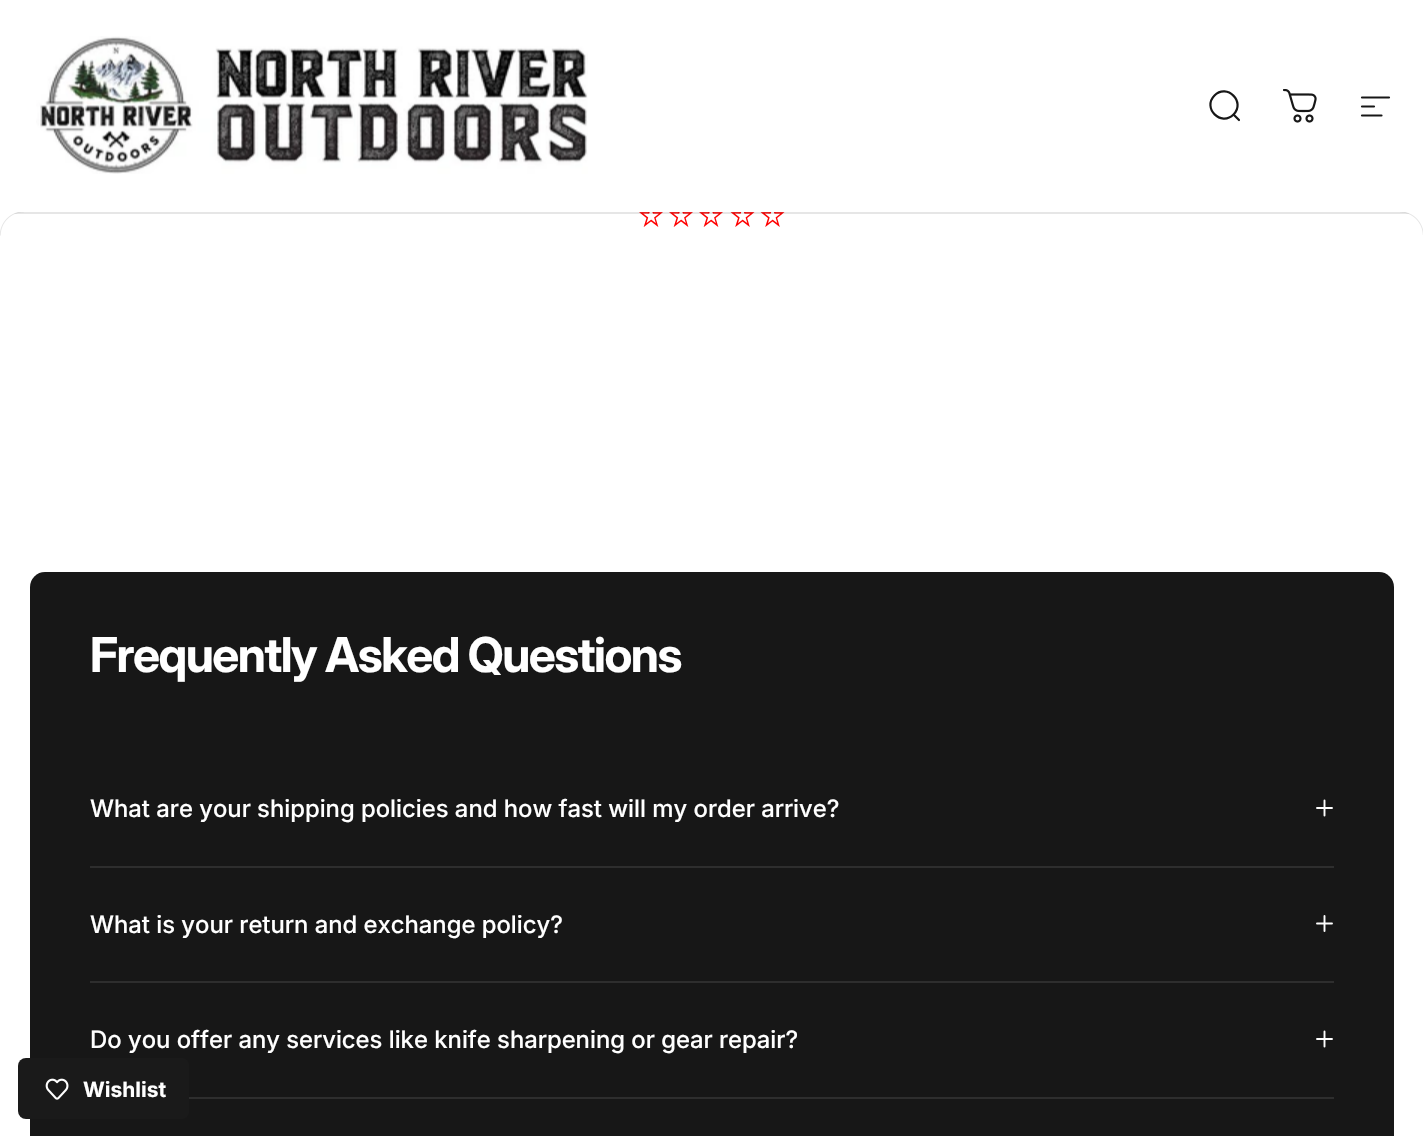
#include "include/core/SkBlurTypes.h"
#include "include/core/SkCanvas.h"
#include "include/core/SkData.h"
#include "include/core/SkFont.h"
#include "include/core/SkFontMgr.h"
#include "include/core/SkImage.h"
#include "include/core/SkMaskFilter.h"
#include "include/core/SkPaint.h"
#include "include/core/SkPathBuilder.h"
#include "include/core/SkTextBlob.h"
#include "include/effects/SkDashPathEffect.h"
#include "include/effects/SkGradientShader.h"
#include "include/utils/SkParsePath.h"

extern sk_sp<SkFontMgr> fontMgr;

void draw(SkCanvas* canvas) {
  SkPaint p;
  p.setAntiAlias(true);
  auto spacedText = [&](const char* s, float x, float y, const SkFont& font, const SkPaint& ink, float letter, float word) {
    std::vector<SkGlyphID> glyphs(font.countText(s, strlen(s), SkTextEncoding::kUTF8));
    std::vector<float> xs(glyphs.size());
    font.textToGlyphs(s, strlen(s), SkTextEncoding::kUTF8, glyphs);
    font.getXPos(glyphs, xs, x);
    float extra = 0;
    for (size_t i = 0; i < glyphs.size(); i++) {
      xs[i] += extra;
      extra += letter + word * (glyphs[i] == font.unicharToGlyph(' '));
    }
    canvas->drawTextBlob(SkTextBlob::MakeFromPosHGlyphs(glyphs, xs, y, font), 0, 0, ink);
  };
  canvas->clear(SK_ColorWHITE);
  canvas->drawImageRect(SkImages::DeferredFromEncodedData(SkData::MakeFromFileName("images/1.png")), SkRect::MakeLTRB(36, 36, 588, 174), SkSamplingOptions());
  p.setStyle(SkPaint::kStroke_Style);
  p.setStrokeWidth(2.2f);
  p.setStrokeCap(SkPaint::kRound_Cap);
  p.setColor(SkColorSetRGB(23, 23, 23));
  canvas->drawPath(SkPathBuilder().moveTo(1239, 120).lineTo(1233.5f, 114.5f).moveTo(1233.5f, 114.5f).cubicTo(1246, 102, 1227, 83, 1214.5f, 95.5f).cubicTo(1202, 108, 1221, 127, 1233.5f, 114.5f).close().detach(), p);
  canvas->drawImageRect(SkImages::DeferredFromEncodedData(SkData::MakeFromFileName("images/2.png")), SkRect::MakeLTRB(1283, 89, 1317, 123), SkSamplingOptions());
  canvas->drawPath(SkPathBuilder().moveTo(1362, 97.5f).lineTo(1389, 97.5f).moveTo(1362, 106.5f).lineTo(1374, 106.5f).moveTo(1362, 115.5f).lineTo(1381.5f, 115.5f).detach(), p);
  canvas->drawImageRect(SkImages::DeferredFromEncodedData(SkData::MakeFromFileName("images/5.png")), SkRect::MakeLTRB(639, 212, 663, 227), SkSamplingOptions());
  canvas->drawImageRect(SkImages::DeferredFromEncodedData(SkData::MakeFromFileName("images/5.png")), SkRect::MakeLTRB(669, 212, 693, 227), SkSamplingOptions());
  canvas->drawImageRect(SkImages::DeferredFromEncodedData(SkData::MakeFromFileName("images/5.png")), SkRect::MakeLTRB(699, 212, 723, 227), SkSamplingOptions());
  canvas->drawImageRect(SkImages::DeferredFromEncodedData(SkData::MakeFromFileName("images/6.png")), SkRect::MakeLTRB(730, 212, 755, 227), SkSamplingOptions());
  canvas->drawImageRect(SkImages::DeferredFromEncodedData(SkData::MakeFromFileName("images/6.png")), SkRect::MakeLTRB(760, 212, 785, 227), SkSamplingOptions());
  p.setStyle(SkPaint::kFill_Style);
  p.setColor(SkColorSetARGB(28, 23, 23, 23));
  canvas->drawRect(SkRect::MakeLTRB(14, 212, 1410, 214), p);
  canvas->drawImageRect(SkImages::DeferredFromEncodedData(SkData::MakeFromFileName("images/3.png")), SkRect::MakeLTRB(0, 212, 24, 236), SkSamplingOptions());
  canvas->drawImageRect(SkImages::DeferredFromEncodedData(SkData::MakeFromFileName("images/4.png")), SkRect::MakeLTRB(1400, 212, 1423, 235), SkSamplingOptions());
  p.setColor(SkColorSetRGB(23, 23, 23));
  canvas->drawRoundRect(SkRect::MakeLTRB(30, 572, 1394, 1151), 15, 15, p);
  p.setStyle(SkPaint::kStroke_Style);
  p.setStrokeWidth(1.9f);
  p.setStrokeJoin(SkPaint::kRound_Join);
  p.setColor(SK_ColorWHITE);
  canvas->drawPath(SkPathBuilder().moveTo(1324.5f, 815.5f).lineTo(1324.5f, 800.5f).moveTo(1332, 808).lineTo(1317, 808).detach(), p);
  p.setStyle(SkPaint::kFill_Style);
  p.setColor(SkColorSetRGB(46, 46, 46));
  canvas->drawRect(SkRect::MakeLTRB(90, 866, 1334, 868), p);
  p.setStyle(SkPaint::kStroke_Style);
  p.setColor(SK_ColorWHITE);
  canvas->drawPath(SkPathBuilder().moveTo(1324.5f, 931).lineTo(1324.5f, 916).moveTo(1332, 923.5f).lineTo(1317, 923.5f).detach(), p);
  p.setStyle(SkPaint::kFill_Style);
  p.setColor(SkColorSetRGB(46, 46, 46));
  canvas->drawRect(SkRect::MakeLTRB(90, 981, 1334, 983), p);
  p.setStyle(SkPaint::kStroke_Style);
  p.setColor(SK_ColorWHITE);
  canvas->drawPath(SkPathBuilder().moveTo(1324.5f, 1046.5f).lineTo(1324.5f, 1031.5f).moveTo(1332, 1039).lineTo(1317, 1039).detach(), p);
  p.setStyle(SkPaint::kFill_Style);
  p.setColor(SkColorSetRGB(46, 46, 46));
  canvas->drawRect(SkRect::MakeLTRB(189, 1097, 1334, 1099), p);
  p.setColor(SkColorSetRGB(26, 26, 26));
  canvas->drawRoundRect(SkRect::MakeLTRB(18, 1058, 189, 1119), 8, 8, p);
  canvas->drawImageRect(SkImages::DeferredFromEncodedData(SkData::MakeFromFileName("images/7.png")), SkRect::MakeLTRB(45, 1078, 69, 1100), SkSamplingOptions());
  SkFont font1(fontMgr->matchFamilyStyle("Inter", SkFontStyle::Bold()), 48);
  font1.setSubpixel(true);
  p.setColor(SK_ColorWHITE);
  spacedText("Frequently Asked Questions", 90, 672, font1, p, -1.45f, 0);
  SkFont font2(fontMgr->matchFamilyStyle("Inter", SkFontStyle(500, SkFontStyle::kNormal_Width, SkFontStyle::kUpright_Slant)), 24);
  font2.setSubpixel(true);
  canvas->drawString("What are your shipping policies and how fast will my order arrive?", 90, 817, font2, p);
  canvas->drawString("What is your return and exchange policy?", 90, 933, font2, p);
  canvas->drawString("Do you offer any services like knife sharpening or gear repair?", 90, 1048, font2, p);
  SkFont font3(fontMgr->matchFamilyStyle("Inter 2", SkFontStyle::Bold()), 21);
  font3.setSubpixel(true);
  canvas->drawString("Wishlist", 83, 1097, font3, p);
}
